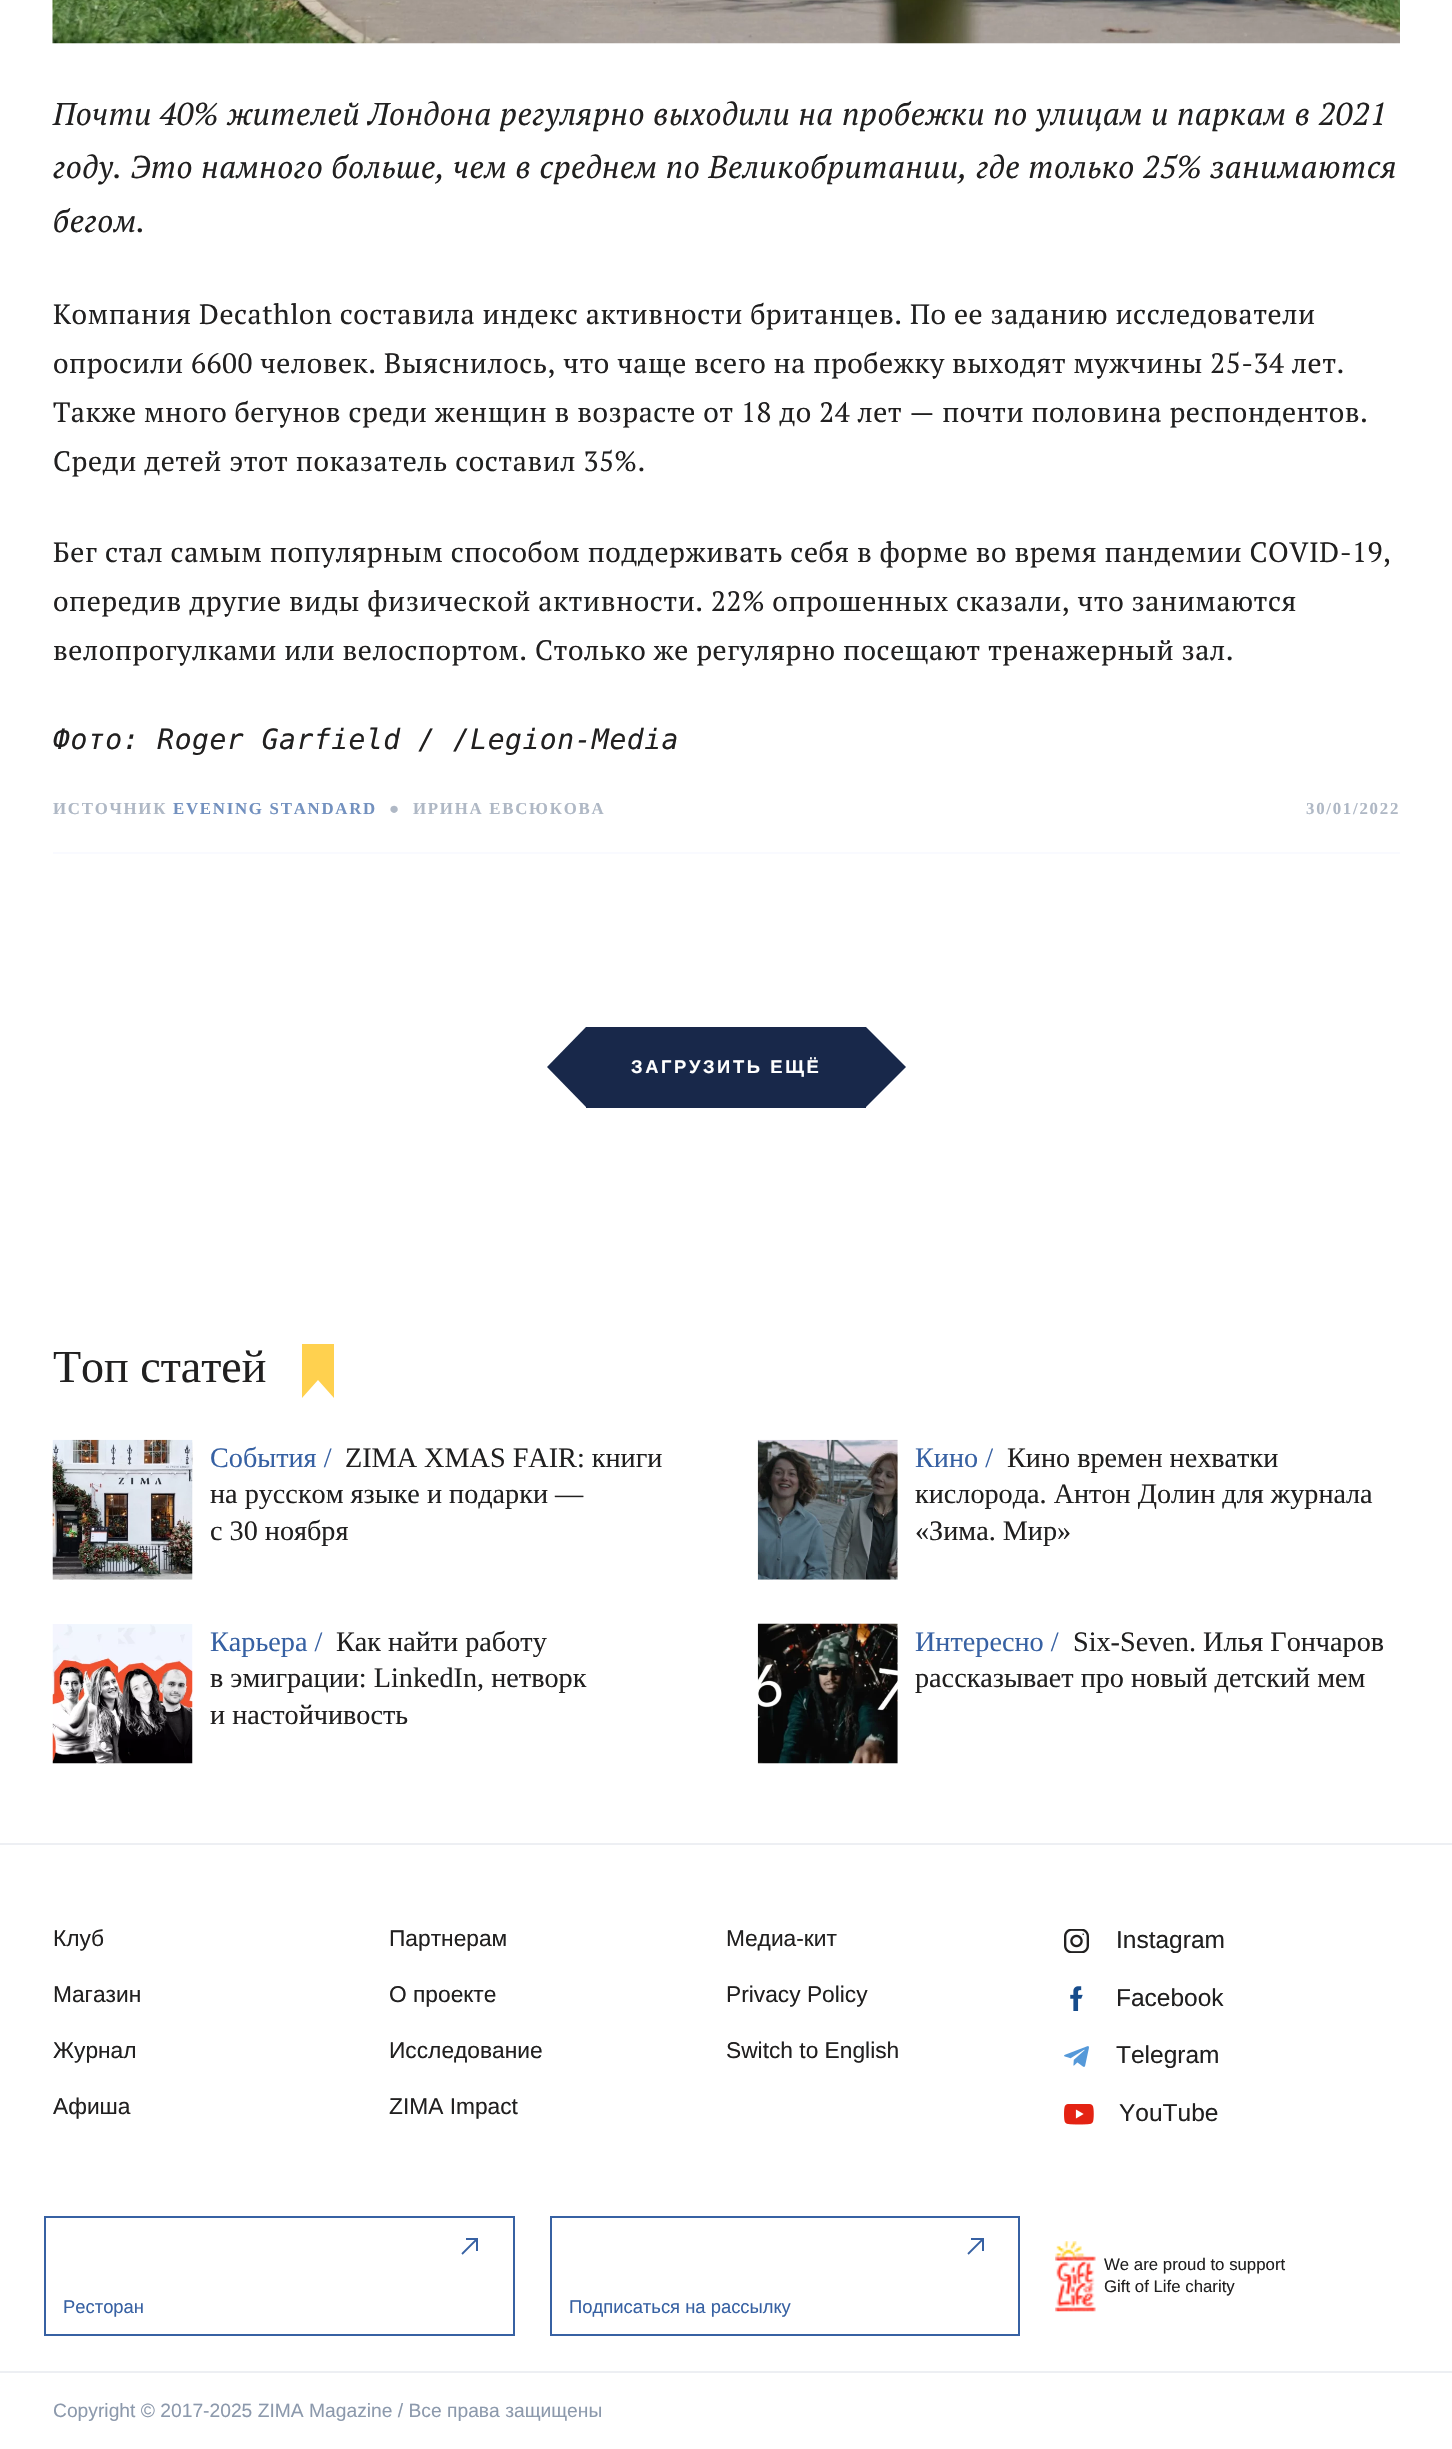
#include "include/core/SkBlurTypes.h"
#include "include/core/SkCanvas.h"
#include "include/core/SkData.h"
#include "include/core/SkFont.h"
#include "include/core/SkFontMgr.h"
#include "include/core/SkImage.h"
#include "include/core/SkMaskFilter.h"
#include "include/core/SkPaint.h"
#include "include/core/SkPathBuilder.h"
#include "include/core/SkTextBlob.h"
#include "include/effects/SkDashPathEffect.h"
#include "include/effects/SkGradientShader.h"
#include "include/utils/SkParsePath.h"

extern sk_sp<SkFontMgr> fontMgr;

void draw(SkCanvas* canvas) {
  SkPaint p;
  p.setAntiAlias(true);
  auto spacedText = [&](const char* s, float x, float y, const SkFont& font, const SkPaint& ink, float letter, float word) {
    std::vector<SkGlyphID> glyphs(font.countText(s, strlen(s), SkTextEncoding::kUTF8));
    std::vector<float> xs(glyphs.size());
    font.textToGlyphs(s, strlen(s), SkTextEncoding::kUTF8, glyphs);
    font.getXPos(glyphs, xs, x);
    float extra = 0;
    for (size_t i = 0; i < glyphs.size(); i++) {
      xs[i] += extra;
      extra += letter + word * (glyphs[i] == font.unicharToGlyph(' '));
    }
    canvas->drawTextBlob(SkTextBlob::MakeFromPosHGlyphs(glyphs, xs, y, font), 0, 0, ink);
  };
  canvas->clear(SK_ColorWHITE);
  p.setColor(SkColorSetRGB(249, 250, 255));
  canvas->drawRect(SkRect::MakeLTRB(53, 852, 1400, 854), p);
  canvas->drawImageRect(SkImages::DeferredFromEncodedData(SkData::MakeFromFileName("images/1.png")), SkRect::MakeLTRB(52, 0, 1400, 44), SkSamplingOptions());
  p.setColor(SkColorSetRGB(24, 40, 74));
  canvas->drawRect(SkRect::MakeLTRB(586, 1027, 866, 1108), p);
  canvas->drawPath(SkPathBuilder().moveTo(586, 1027).lineTo(626, 1067).lineTo(586, 1107).lineTo(547, 1067).close().detach(), p);
  canvas->drawPath(SkPathBuilder().moveTo(866, 1027).lineTo(906, 1067).lineTo(866, 1107).lineTo(827, 1067).close().detach(), p);
  p.setColor(SkColorSetRGB(255, 209, 79));
  canvas->drawPath(SkPathBuilder().moveTo(334, 1344).lineTo(302, 1344).lineTo(302, 1398).lineTo(318, 1380).lineTo(334, 1398).close().detach(), p);
  canvas->drawImageRect(SkImages::DeferredFromEncodedData(SkData::MakeFromFileName("images/2.png")), SkRect::MakeLTRB(52, 1439, 193, 1580), SkSamplingOptions());
  canvas->drawImageRect(SkImages::DeferredFromEncodedData(SkData::MakeFromFileName("images/3.png")), SkRect::MakeLTRB(757, 1439, 898, 1580), SkSamplingOptions());
  canvas->drawImageRect(SkImages::DeferredFromEncodedData(SkData::MakeFromFileName("images/4.png")), SkRect::MakeLTRB(52, 1624, 193, 1764), SkSamplingOptions());
  canvas->drawImageRect(SkImages::DeferredFromEncodedData(SkData::MakeFromFileName("images/5.png")), SkRect::MakeLTRB(757, 1623, 898, 1764), SkSamplingOptions());
  p.setColor(SkColorSetRGB(237, 239, 243));
  canvas->drawRect(SkRect::MakeLTRB(0, 1843, 1452, 1845), p);
  canvas->drawImageRect(SkImages::DeferredFromEncodedData(SkData::MakeFromFileName("images/6.png")), SkRect::MakeLTRB(1064, 1929, 1089, 1953), SkSamplingOptions());
  canvas->drawImageRect(SkImages::DeferredFromEncodedData(SkData::MakeFromFileName("images/7.png")), SkRect::MakeLTRB(1070, 1986, 1083, 2011), SkSamplingOptions());
  canvas->drawImageRect(SkImages::DeferredFromEncodedData(SkData::MakeFromFileName("images/8.png")), SkRect::MakeLTRB(1064, 2046, 1089, 2067), SkSamplingOptions());
  canvas->drawImageRect(SkImages::DeferredFromEncodedData(SkData::MakeFromFileName("images/9.png")), SkRect::MakeLTRB(1064, 2104, 1094, 2125), SkSamplingOptions());
  canvas->drawImageRect(SkImages::DeferredFromEncodedData(SkData::MakeFromFileName("images/10.png")), SkRect::MakeLTRB(1055, 2241, 1096, 2312), SkSamplingOptions());
  p.setStyle(SkPaint::kStroke_Style);
  p.setStrokeWidth(2);
  p.setColor(SkColorSetRGB(55, 97, 163));
  canvas->drawRect(SkRect::MakeLTRB(45, 2217, 514, 2335), p);
  p.setStyle(SkPaint::kFill_Style);
  canvas->drawRect(SkRect::MakeLTRB(466, 2238, 478, 2240), p);
  canvas->drawRect(SkRect::MakeLTRB(476, 2238, 478, 2251), p);
  p.setStyle(SkPaint::kStroke_Style);
  p.setStrokeWidth(1.8f);
  canvas->drawPath(SkPathBuilder().moveTo(476, 2240).lineTo(462, 2254).detach(), p);
  p.setStrokeWidth(2);
  canvas->drawRect(SkRect::MakeLTRB(551, 2217, 1019, 2335), p);
  p.setStyle(SkPaint::kFill_Style);
  canvas->drawRect(SkRect::MakeLTRB(971, 2238, 984, 2240), p);
  canvas->drawRect(SkRect::MakeLTRB(982, 2238, 984, 2251), p);
  p.setStyle(SkPaint::kStroke_Style);
  p.setStrokeWidth(1.8f);
  canvas->drawPath(SkPathBuilder().moveTo(982, 2240).lineTo(968, 2254).detach(), p);
  p.setStyle(SkPaint::kFill_Style);
  p.setColor(SkColorSetRGB(237, 239, 243));
  canvas->drawRect(SkRect::MakeLTRB(0, 2371, 1452, 2373), p);
  SkFont font1(fontMgr->matchFamilyStyle("PT Serif", SkFontStyle::Italic()), 31.5f);
  font1.setSubpixel(true);
  p.setColor(SkColorSetRGB(33, 32, 32));
  spacedText("Почти 40% жителей Лондона регулярно выходили на пробежки по улицам и паркам в 2021", 53, 125, font1, p, 0.53f, 0);
  spacedText("году. Это намного больше, чем в среднем по Великобритании, где только 25% занимаются", 53, 178, font1, p, 0.53f, 0);
  spacedText("бегом.", 53, 232, font1, p, 0.53f, 0);
  SkFont font2(fontMgr->matchFamilyStyle("PT Serif", SkFontStyle::Normal()), 28);
  font2.setSubpixel(true);
  spacedText("Компания Decathlon составила индекс активности британцев. По ее заданию исследователи", 53, 324, font2, p, 0.53f, 0);
  spacedText("опросили 6600 человек. Выяснилось, что чаще всего на пробежку выходят мужчины 25-34 лет.", 53, 373, font2, p, 0.53f, 0);
  spacedText("Также много бегунов среди женщин в возрасте от 18 до 24 лет — почти половина респондентов.", 53, 422, font2, p, 0.53f, 0);
  spacedText("Среди детей этот показатель составил 35%.", 53, 471, font2, p, 0.53f, 0);
  spacedText("Бег стал самым популярным способом поддерживать себя в форме во время пандемии COVID-19,", 53, 562, font2, p, 0.53f, 0);
  spacedText("опередив другие виды физической активности. 22% опрошенных сказали, что занимаются", 53, 611, font2, p, 0.53f, 0);
  spacedText("велопрогулками или велоспортом. Столько же регулярно посещают тренажерный зал.", 53, 660, font2, p, 0.53f, 0);
  SkFont font3(fontMgr->matchFamilyStyle("DejaVu Sans Mono", SkFontStyle::Italic()), 28);
  font3.setSubpixel(true);
  spacedText("Фото: Roger Garfield / /Legion-Media", 53, 749, font3, p, 0.53f, 0);
  SkFont font4(fontMgr->matchFamilyStyle("Liberation Serif", SkFontStyle::Bold()), 16.8f);
  font4.setSubpixel(true);
  p.setColor(SkColorSetRGB(175, 184, 197));
  spacedText("ИСТОЧНИК", 53, 814, font4, p, 1.75f, 0);
  p.setColor(SkColorSetRGB(115, 145, 191));
  spacedText("EVENING STANDARD", 173, 814, font4, p, 1.75f, 0);
  p.setColor(SkColorSetRGB(175, 184, 197));
  spacedText("●", 389, 814, font4, p, 1.75f, 0);
  spacedText("ИРИНА ЕВСЮКОВА", 413, 814, font4, p, 1.75f, 0);
  spacedText("30/01/2022", 1306, 814, font4, p, 1.75f, 0);
  SkFont font5(fontMgr->matchFamilyStyle("Liberation Sans", SkFontStyle::Bold()), 18.4f);
  font5.setSubpixel(true);
  p.setColor(SK_ColorWHITE);
  spacedText("ЗАГРУЗИТЬ ЕЩЁ", 631, 1073, font5, p, 2.6f, 0);
  SkFont font6(fontMgr->matchFamilyStyle("Liberation Serif", SkFontStyle::Normal()), 46);
  font6.setSubpixel(true);
  p.setColor(SkColorSetRGB(33, 32, 32));
  canvas->drawString("Топ статей", 53, 1382, font6, p);
  SkFont font7(fontMgr->matchFamilyStyle("Liberation Serif", SkFontStyle::Normal()), 28.2f);
  font7.setSubpixel(true);
  p.setColor(SkColorSetRGB(55, 97, 163));
  canvas->drawString("События /", 210, 1467, font7, p);
  p.setColor(SkColorSetRGB(33, 32, 32));
  canvas->drawString("ZIMA XMAS FAIR: книги", 345, 1467, font7, p);
  canvas->drawString("на русском языке и подарки —", 210, 1503, font7, p);
  canvas->drawString("с 30 ноября", 210, 1540, font7, p);
  p.setColor(SkColorSetRGB(55, 97, 163));
  canvas->drawString("Кино /", 915, 1467, font7, p);
  p.setColor(SkColorSetRGB(33, 32, 32));
  canvas->drawString("Кино времен нехватки", 1007, 1467, font7, p);
  canvas->drawString("кислорода. Антон Долин для журнала", 915, 1503, font7, p);
  canvas->drawString("«Зима. Мир»", 915, 1540, font7, p);
  p.setColor(SkColorSetRGB(55, 97, 163));
  canvas->drawString("Карьера /", 210, 1651, font7, p);
  p.setColor(SkColorSetRGB(33, 32, 32));
  canvas->drawString("Как найти работу", 336, 1651, font7, p);
  canvas->drawString("в эмиграции: LinkedIn, нетворк", 210, 1687, font7, p);
  canvas->drawString("и настойчивость", 210, 1724, font7, p);
  p.setColor(SkColorSetRGB(55, 97, 163));
  canvas->drawString("Интересно /", 915, 1651, font7, p);
  p.setColor(SkColorSetRGB(33, 32, 32));
  canvas->drawString("Six-Seven. Илья Гончаров", 1073, 1651, font7, p);
  canvas->drawString("рассказывает про новый детский мем", 915, 1687, font7, p);
  SkFont font8(fontMgr->matchFamilyStyle("Liberation Sans", SkFontStyle::Normal()), 22.75f);
  font8.setSubpixel(true);
  canvas->drawString("Клуб", 53, 1946, font8, p);
  canvas->drawString("Магазин", 53, 2002, font8, p);
  canvas->drawString("Журнал", 53, 2058, font8, p);
  canvas->drawString("Афиша", 53, 2114, font8, p);
  canvas->drawString("Партнерам", 389, 1946, font8, p);
  canvas->drawString("О проекте", 389, 2002, font8, p);
  canvas->drawString("Исследование", 389, 2058, font8, p);
  canvas->drawString("ZIMA Impact", 389, 2114, font8, p);
  canvas->drawString("Медиа-кит", 726, 1946, font8, p);
  canvas->drawString("Privacy Policy", 726, 2002, font8, p);
  canvas->drawString("Switch to English", 726, 2058, font8, p);
  SkFont font9(fontMgr->matchFamilyStyle("Liberation Sans", SkFontStyle::Normal()), 24.5f);
  font9.setSubpixel(true);
  canvas->drawString("Instagram", 1116, 1948, font9, p);
  canvas->drawString("Facebook", 1116, 2006, font9, p);
  canvas->drawString("Telegram", 1116, 2063, font9, p);
  canvas->drawString("YouTube", 1119, 2121, font9, p);
  SkFont font10(fontMgr->matchFamilyStyle("Liberation Sans", SkFontStyle::Normal()), 16.8f);
  font10.setSubpixel(true);
  canvas->drawString("We are proud to support", 1104, 2270, font10, p);
  canvas->drawString("Gift of Life charity", 1104, 2292, font10, p);
  SkFont font11(fontMgr->matchFamilyStyle("Liberation Sans", SkFontStyle::Normal()), 18.4f);
  font11.setSubpixel(true);
  p.setColor(SkColorSetRGB(55, 97, 163));
  canvas->drawString("Ресторан", 63, 2313, font11, p);
  canvas->drawString("Подписаться на рассылку", 569, 2313, font11, p);
  SkFont font12(fontMgr->matchFamilyStyle("Liberation Sans", SkFontStyle::Normal()), 19.25f);
  font12.setSubpixel(true);
  p.setColor(SkColorSetRGB(140, 153, 172));
  canvas->drawString("Copyright © 2017-2025 ZIMA Magazine / Все права защищены", 53, 2417, font12, p);
}
